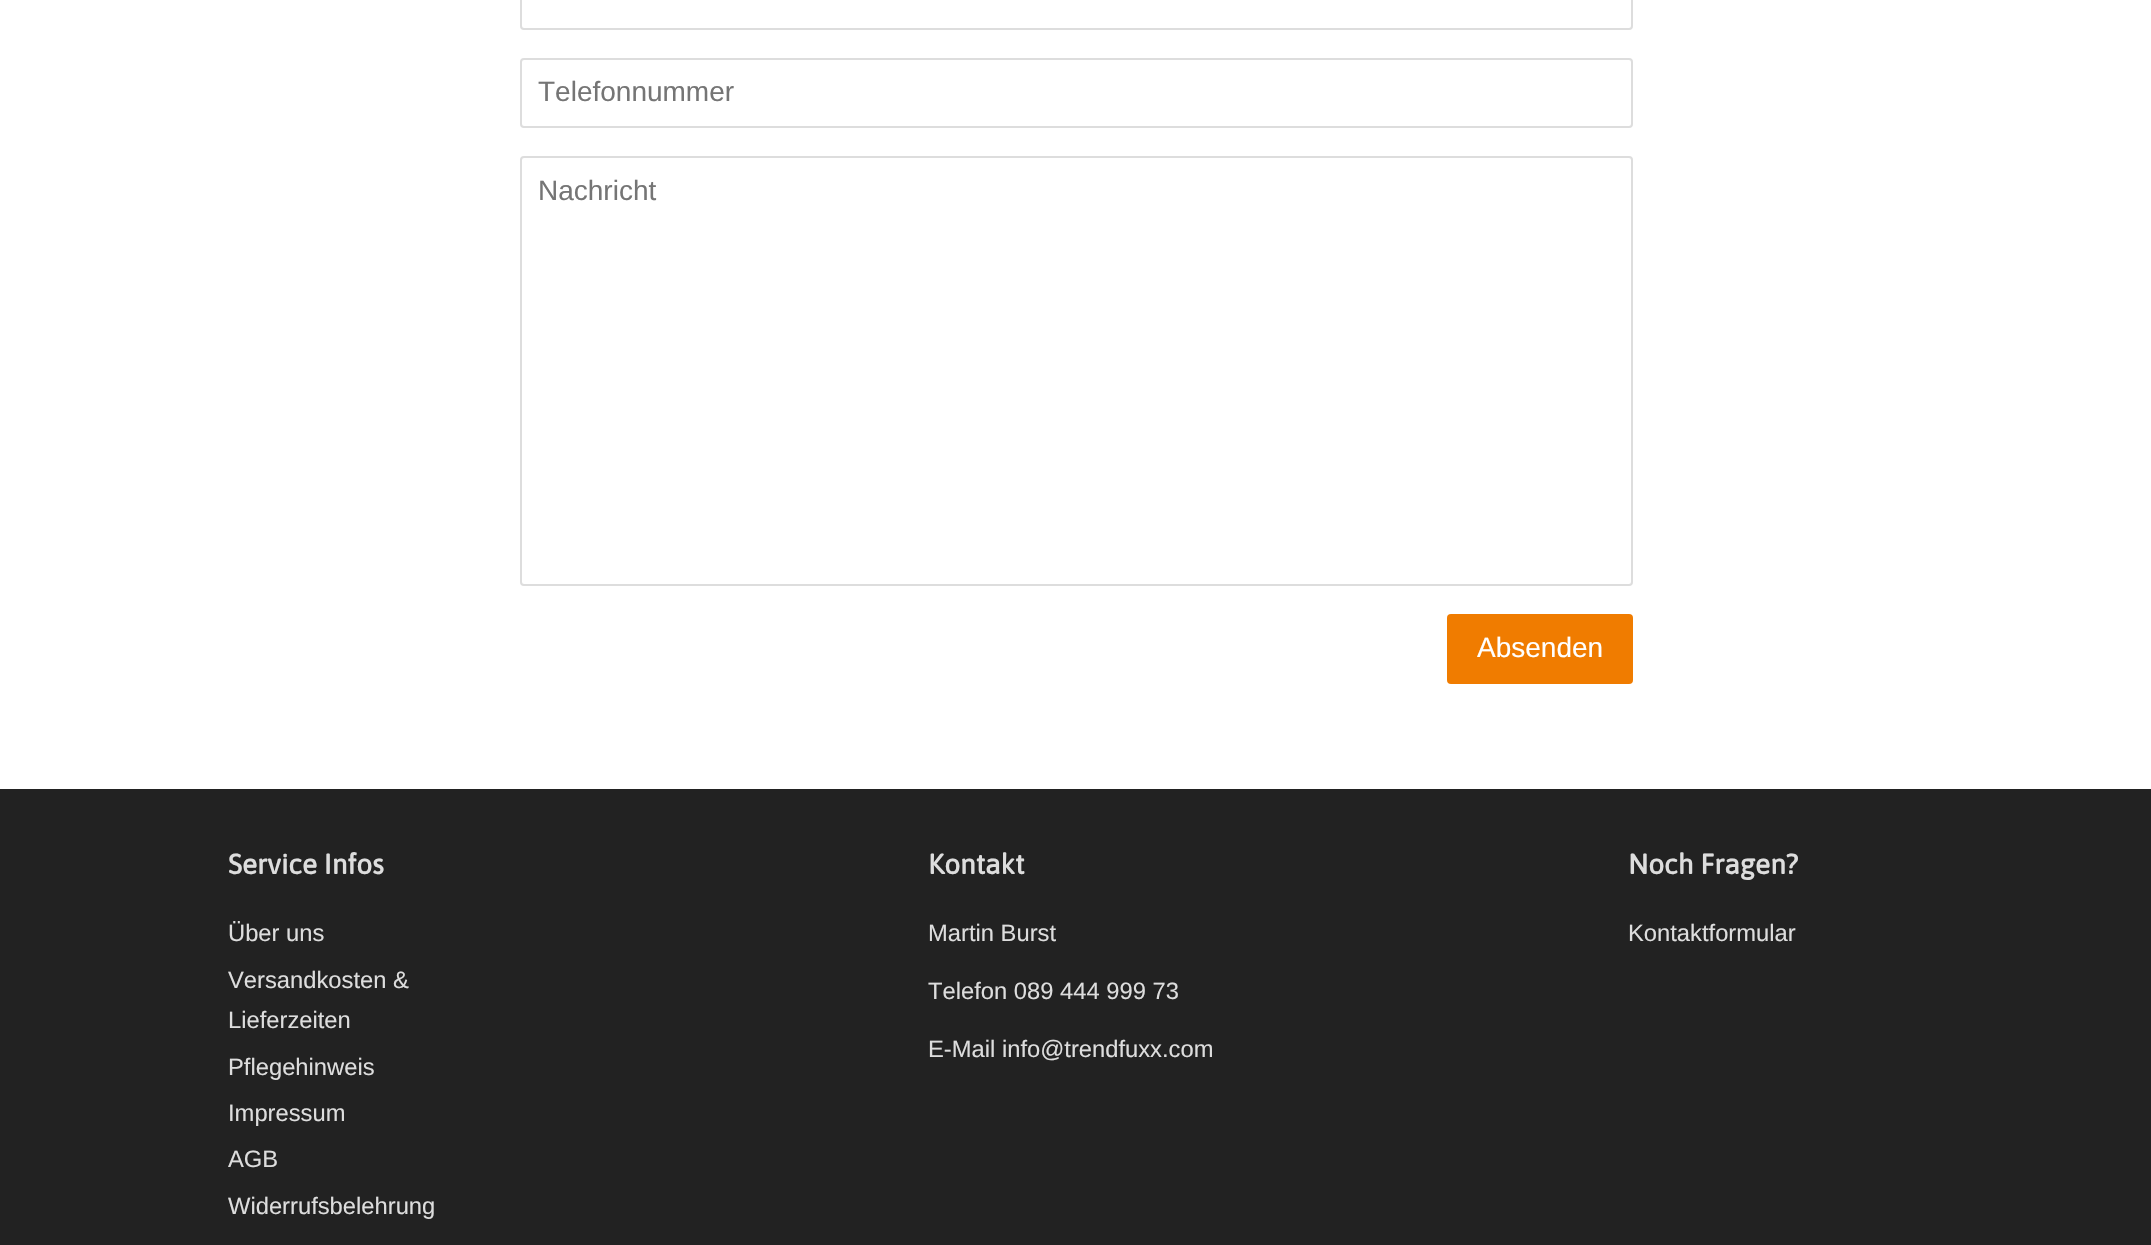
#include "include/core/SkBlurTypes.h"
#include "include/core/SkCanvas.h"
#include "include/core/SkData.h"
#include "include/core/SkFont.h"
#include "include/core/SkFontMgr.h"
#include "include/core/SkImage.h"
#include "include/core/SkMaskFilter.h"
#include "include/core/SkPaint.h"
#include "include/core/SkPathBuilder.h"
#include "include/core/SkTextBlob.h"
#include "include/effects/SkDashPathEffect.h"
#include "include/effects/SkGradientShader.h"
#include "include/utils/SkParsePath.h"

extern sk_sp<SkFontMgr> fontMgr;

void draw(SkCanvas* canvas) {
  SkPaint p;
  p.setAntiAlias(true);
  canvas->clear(SK_ColorWHITE);
  p.setStyle(SkPaint::kStroke_Style);
  p.setStrokeWidth(2);
  p.setColor(SkColorSetRGB(221, 221, 221));
  canvas->drawRoundRect(SkRect::MakeLTRB(521, -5, 1632, 29), 3, 3, p);
  canvas->drawRoundRect(SkRect::MakeLTRB(521, 59, 1632, 127), 3, 3, p);
  canvas->drawRoundRect(SkRect::MakeLTRB(521, 157, 1632, 585), 3, 3, p);
  p.setStyle(SkPaint::kFill_Style);
  p.setColor(SkColorSetRGB(240, 124, 0));
  canvas->drawRoundRect(SkRect::MakeLTRB(1447, 614, 1633, 684), 4, 4, p);
  p.setColor(SkColorSetRGB(34, 34, 34));
  canvas->drawRect(SkRect::MakeLTRB(0, 789, 2151, 1245), p);
  SkFont font1(fontMgr->matchFamilyStyle("Liberation Sans", SkFontStyle::Normal()), 28);
  font1.setSubpixel(true);
  p.setColor(SkColorSetRGB(117, 117, 117));
  canvas->drawString("Telefonnummer", 538, 101, font1, p);
  canvas->drawString("Nachricht", 538, 200, font1, p);
  p.setColor(SK_ColorWHITE);
  canvas->drawString("Absenden", 1477, 657, font1, p);
  SkFont font2(fontMgr->matchFamilyStyle("Asap", SkFontStyle::Bold()), 28);
  font2.setSubpixel(true);
  p.setColor(SkColorSetRGB(221, 221, 221));
  canvas->drawString("Service Infos", 228, 874, font2, p);
  SkFont font3(fontMgr->matchFamilyStyle("Liberation Sans", SkFontStyle::Normal()), 23.75f);
  font3.setSubpixel(true);
  canvas->drawString("Über uns", 228, 941, font3, p);
  canvas->drawString("Versandkosten &", 228, 988, font3, p);
  canvas->drawString("Lieferzeiten", 228, 1028, font3, p);
  canvas->drawString("Pflegehinweis", 228, 1075, font3, p);
  canvas->drawString("Impressum", 228, 1121, font3, p);
  canvas->drawString("AGB", 228, 1167, font3, p);
  canvas->drawString("Widerrufsbelehrung", 228, 1214, font3, p);
  canvas->drawString("Kontakt", 928, 874, font2, p);
  canvas->drawString("Martin Burst", 928, 941, font3, p);
  canvas->drawString("Telefon 089 444 999 73", 928, 999, font3, p);
  canvas->drawString("E-Mail info@trendfuxx.com", 928, 1057, font3, p);
  canvas->drawString("Noch Fragen?", 1628, 874, font2, p);
  canvas->drawString("Kontaktformular", 1628, 941, font3, p);
}
